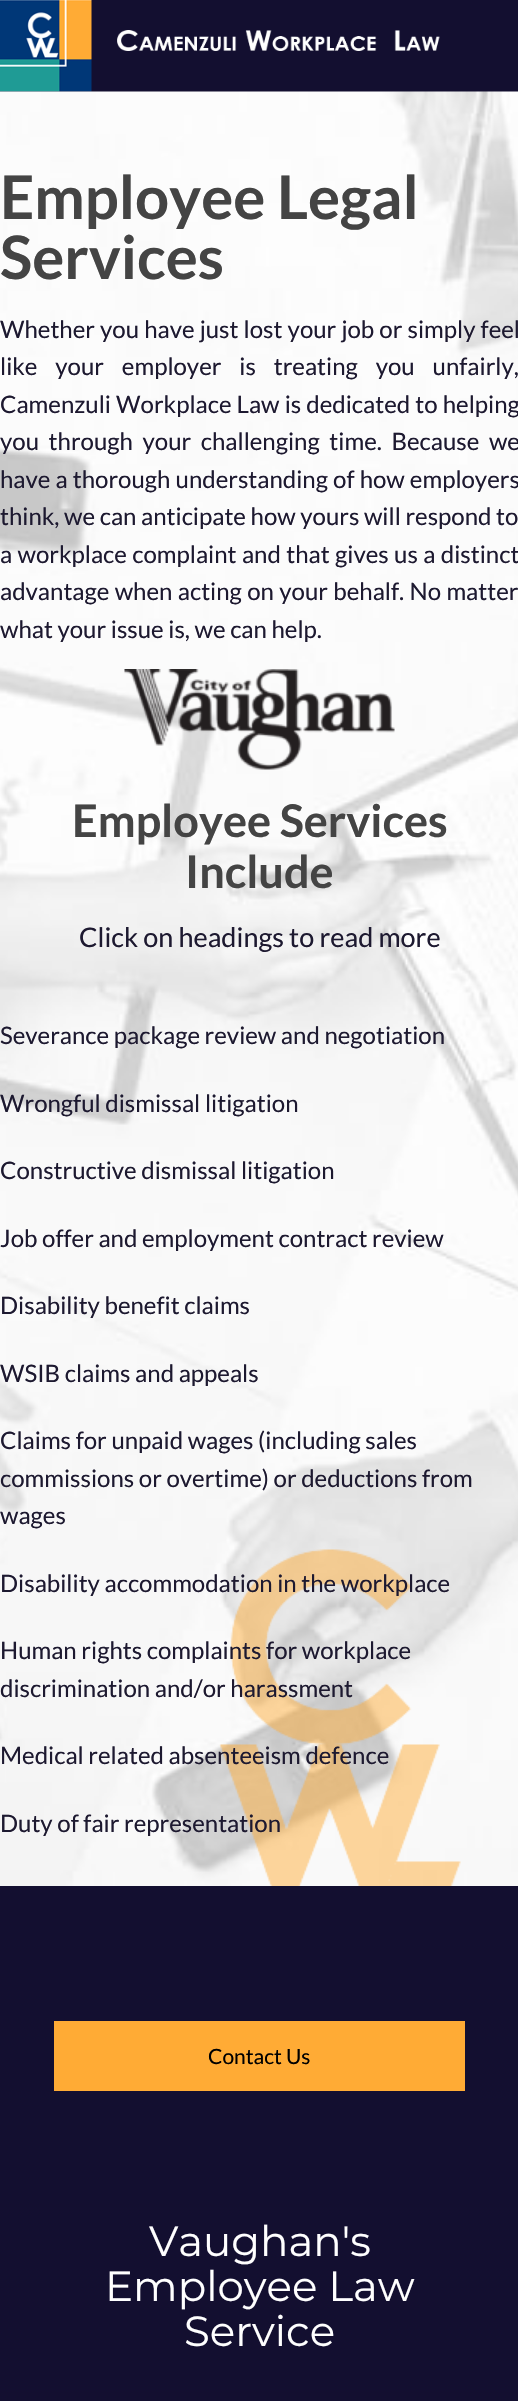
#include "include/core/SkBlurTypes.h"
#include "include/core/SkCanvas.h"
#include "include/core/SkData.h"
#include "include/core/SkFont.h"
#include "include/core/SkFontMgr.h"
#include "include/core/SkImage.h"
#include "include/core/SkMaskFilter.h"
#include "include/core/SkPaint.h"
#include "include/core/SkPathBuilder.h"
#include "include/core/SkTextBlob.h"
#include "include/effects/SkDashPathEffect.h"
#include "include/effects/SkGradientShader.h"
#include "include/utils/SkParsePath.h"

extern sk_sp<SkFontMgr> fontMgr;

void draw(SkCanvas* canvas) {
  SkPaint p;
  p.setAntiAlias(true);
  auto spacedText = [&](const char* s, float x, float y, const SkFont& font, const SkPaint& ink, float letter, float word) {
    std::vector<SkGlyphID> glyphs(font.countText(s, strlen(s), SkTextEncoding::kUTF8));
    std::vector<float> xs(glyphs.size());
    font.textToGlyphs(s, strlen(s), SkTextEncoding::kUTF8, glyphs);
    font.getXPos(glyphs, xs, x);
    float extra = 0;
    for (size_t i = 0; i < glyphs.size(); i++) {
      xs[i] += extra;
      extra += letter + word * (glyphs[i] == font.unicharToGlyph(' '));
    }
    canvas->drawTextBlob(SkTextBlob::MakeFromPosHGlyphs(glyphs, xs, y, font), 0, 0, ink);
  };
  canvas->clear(SkColorSetRGB(19, 15, 48));
  canvas->drawImageRect(SkImages::DeferredFromEncodedData(SkData::MakeFromFileName("images/1.png")), SkRect::MakeLTRB(0, 0, 92, 92), SkSamplingOptions());
  canvas->drawImageRect(SkImages::DeferredFromEncodedData(SkData::MakeFromFileName("images/2.png")), SkRect::MakeLTRB(117, 30, 440, 51), SkSamplingOptions());
  canvas->drawImageRect(SkImages::DeferredFromEncodedData(SkData::MakeFromFileName("images/3.png")), SkRect::MakeLTRB(0, 91, 518, 1886), SkSamplingOptions());
  canvas->drawImageRect(SkImages::DeferredFromEncodedData(SkData::MakeFromFileName("images/4.png")), SkRect::MakeLTRB(124, 669, 395, 770), SkSamplingOptions());
  p.setColor(SkColorSetRGB(255, 171, 53));
  canvas->drawRect(SkRect::MakeLTRB(54, 2021, 465, 2091), p);
  SkFont font1(fontMgr->matchFamilyStyle("Lato", SkFontStyle::Bold()), 60);
  font1.setSubpixel(true);
  p.setColor(SkColorSetRGB(68, 68, 68));
  canvas->drawString("Employee Legal", 0, 219, font1, p);
  canvas->drawString("Services", 0, 279, font1, p);
  SkFont font2(fontMgr->matchFamilyStyle("Lato", SkFontStyle::Normal()), 24);
  font2.setSubpixel(true);
  p.setColor(SkColorSetRGB(29, 25, 48));
  spacedText("Whether you have just lost your job or simply feel", 0, 338, font2, p, 0, 0.5f);
  spacedText("like your employer is treating you unfairly,", 0, 375, font2, p, 0, 13.25f);
  spacedText("Camenzuli Workplace Law is dedicated to helping", 0, 413, font2, p, 0, 0.5f);
  spacedText("you through your challenging time. Because we", 0, 450, font2, p, 0, 5);
  spacedText("have a thorough understanding of how employers", 0, 488, font2, p, 0, 0.5f);
  canvas->drawString("think, we can anticipate how yours will respond to", 0, 525, font2, p);
  spacedText("a workplace complaint and that gives us a distinct", 0, 563, font2, p, 0, 0.75f);
  spacedText("advantage when acting on your behalf. No matter", 0, 600, font2, p, 0, 0.75f);
  canvas->drawString("what your issue is, we can help.", 0, 638, font2, p);
  SkFont font3(fontMgr->matchFamilyStyle("Lato", SkFontStyle::Bold()), 45);
  font3.setSubpixel(true);
  p.setColor(SkColorSetRGB(68, 68, 68));
  canvas->drawString("Employee Services", 72, 837, font3, p);
  canvas->drawString("Include", 185, 888, font3, p);
  SkFont font4(fontMgr->matchFamilyStyle("Lato", SkFontStyle::Normal()), 27);
  font4.setSubpixel(true);
  p.setColor(SkColorSetRGB(29, 25, 48));
  canvas->drawString("Click on headings to read more", 79, 947, font4, p);
  canvas->drawString("Severance package review and negotiation", 0, 1044, font2, p);
  canvas->drawString("Wrongful dismissal litigation", 0, 1112, font2, p);
  canvas->drawString("Constructive dismissal litigation", 0, 1179, font2, p);
  canvas->drawString("Job offer and employment contract review", 0, 1247, font2, p);
  canvas->drawString("Disability benefit claims", 0, 1314, font2, p);
  canvas->drawString("WSIB claims and appeals", 0, 1382, font2, p);
  canvas->drawString("Claims for unpaid wages (including sales", 0, 1449, font2, p);
  canvas->drawString("commissions or overtime) or deductions from", 0, 1487, font2, p);
  canvas->drawString("wages", 0, 1524, font2, p);
  canvas->drawString("Disability accommodation in the workplace", 0, 1592, font2, p);
  canvas->drawString("Human rights complaints for workplace", 0, 1659, font2, p);
  canvas->drawString("discrimination and/or harassment", 0, 1697, font2, p);
  canvas->drawString("Medical related absenteeism defence", 0, 1764, font2, p);
  canvas->drawString("Duty of fair representation", 0, 1832, font2, p);
  SkFont font5(fontMgr->matchFamilyStyle("Lato", SkFontStyle::Normal()), 21);
  font5.setSubpixel(true);
  p.setColor(SK_ColorBLACK);
  canvas->drawString("Contact Us", 208, 2064, font5, p);
  SkFont font6(fontMgr->matchFamilyStyle("Montserrat", SkFontStyle(100, SkFontStyle::kNormal_Width, SkFontStyle::kUpright_Slant)), 42);
  font6.setSubpixel(true);
  p.setColor(SK_ColorWHITE);
  canvas->drawString("Vaughan's", 149, 2256, font6, p);
  canvas->drawString("Employee Law", 105, 2301, font6, p);
  canvas->drawString("Service", 184, 2346, font6, p);
}
